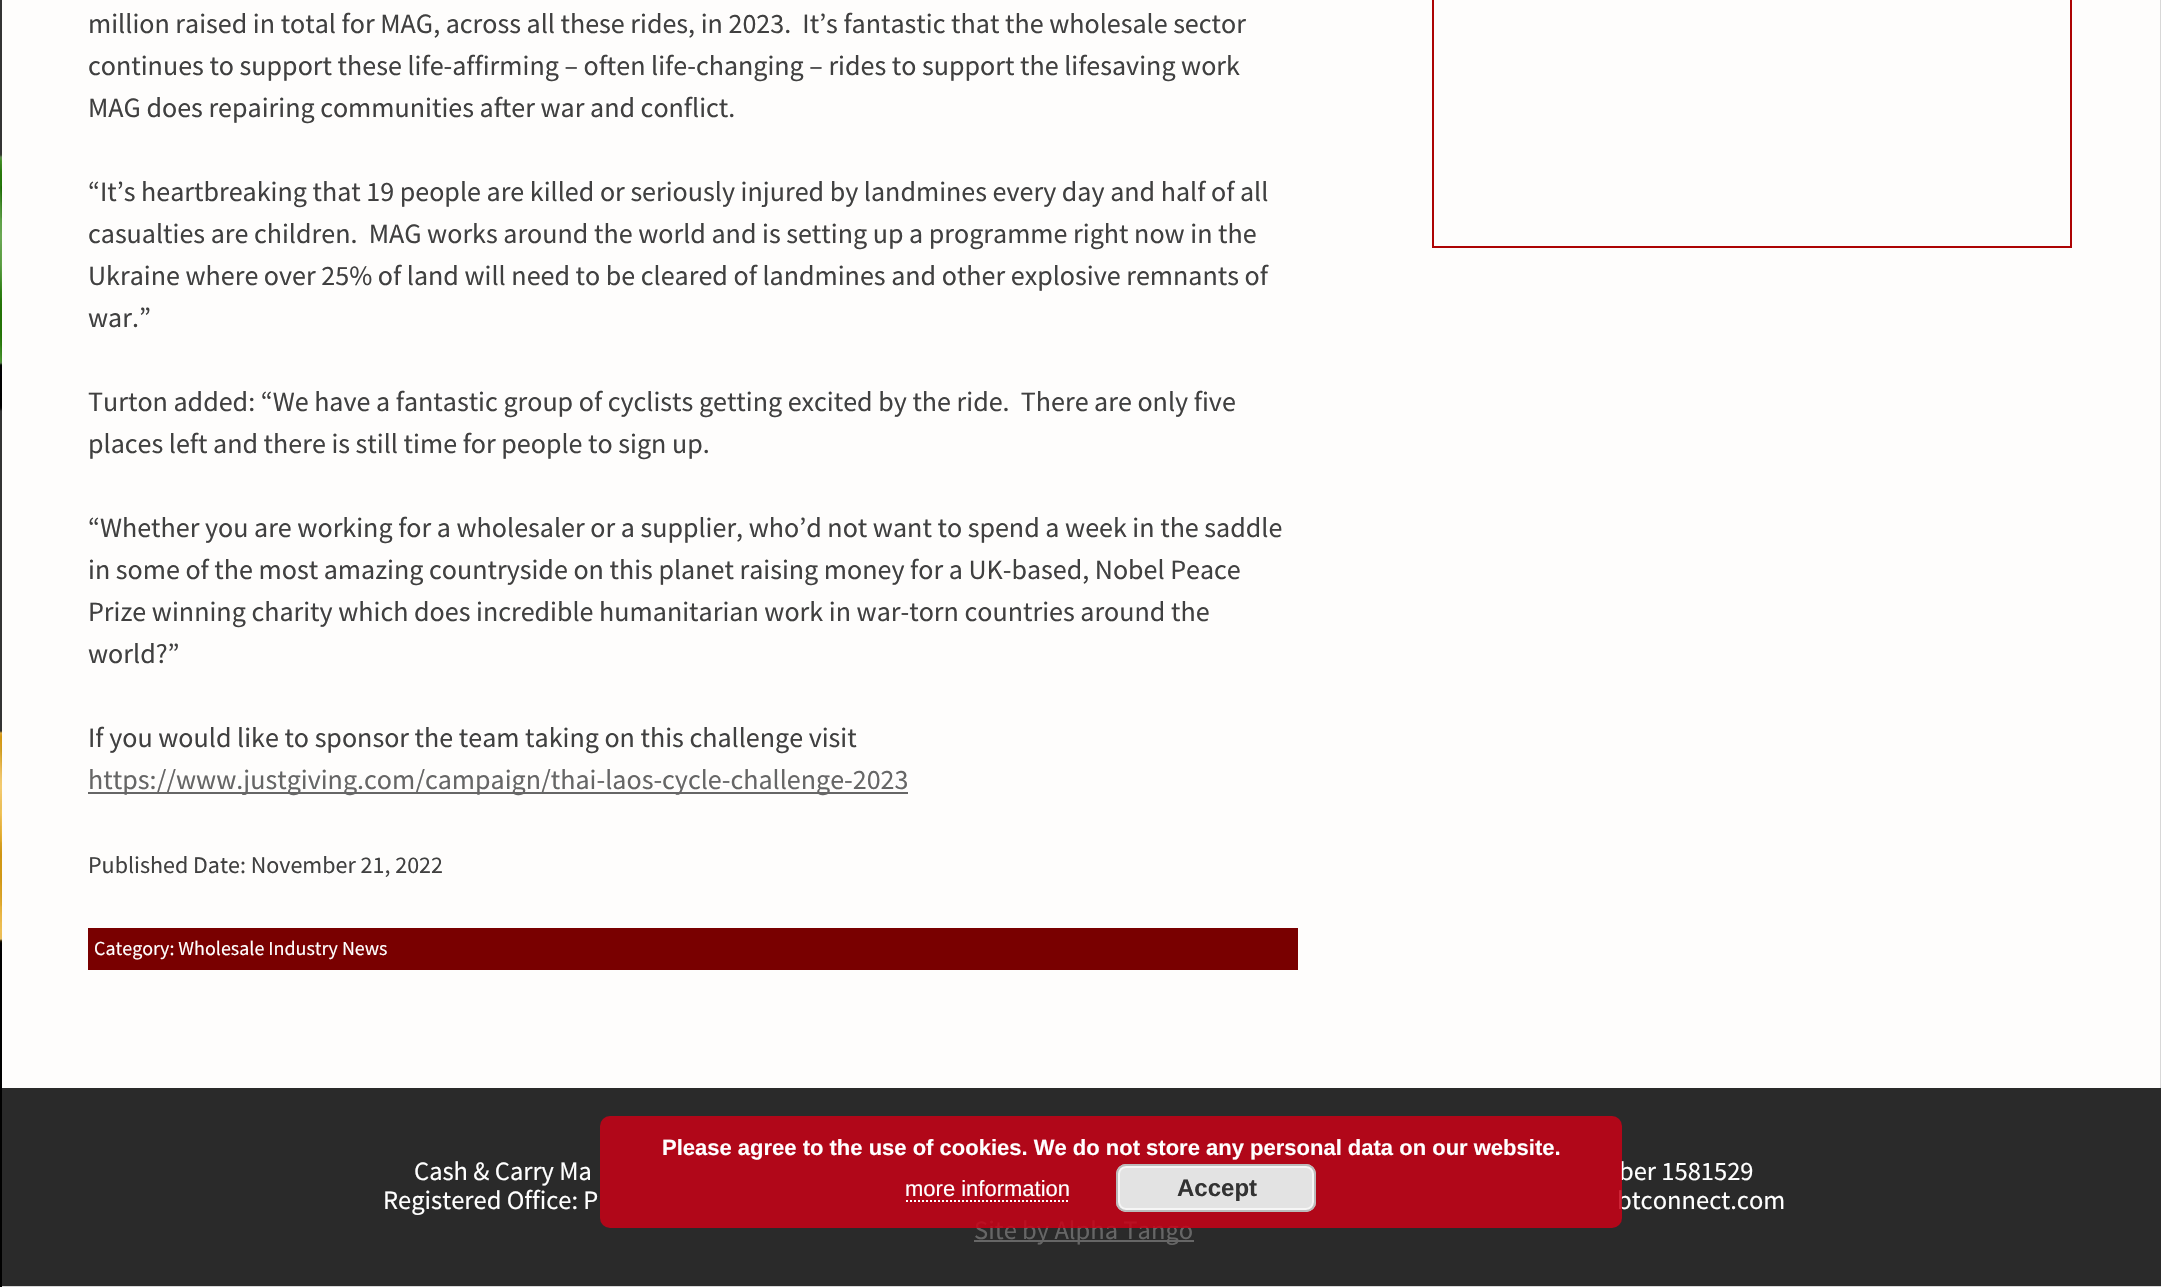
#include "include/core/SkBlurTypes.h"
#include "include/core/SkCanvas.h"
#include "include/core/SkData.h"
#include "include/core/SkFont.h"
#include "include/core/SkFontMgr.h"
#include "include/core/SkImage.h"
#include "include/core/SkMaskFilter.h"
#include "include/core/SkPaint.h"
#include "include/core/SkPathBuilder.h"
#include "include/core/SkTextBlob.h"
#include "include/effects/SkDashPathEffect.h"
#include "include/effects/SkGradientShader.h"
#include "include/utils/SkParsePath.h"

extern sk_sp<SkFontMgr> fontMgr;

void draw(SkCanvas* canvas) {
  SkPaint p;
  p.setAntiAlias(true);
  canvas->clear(SkColorSetRGB(254, 253, 252));
  p.setStyle(SkPaint::kStroke_Style);
  p.setStrokeWidth(2);
  p.setColor(SkColorSetRGB(215, 215, 215));
  canvas->drawRect(SkRect::MakeLTRB(1, -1, 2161, 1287), p);
  canvas->drawImageRect(SkImages::DeferredFromEncodedData(SkData::MakeFromFileName("images/1.png")), SkRect::MakeLTRB(0, 0, 2, 1287), SkSamplingOptions());
  p.setStyle(SkPaint::kFill_Style);
  p.setColor(SkColorSetRGB(102, 102, 102));
  canvas->drawRect(SkRect::MakeLTRB(88, 792, 908, 794), p);
  p.setColor(SkColorSetRGB(121, 0, 0));
  canvas->drawRect(SkRect::MakeLTRB(88, 928, 1298, 970), p);
  p.setStyle(SkPaint::kStroke_Style);
  p.setColor(SkColorSetRGB(173, 4, 4));
  canvas->drawRect(SkRect::MakeLTRB(1433, -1, 2071, 247), p);
  p.setStyle(SkPaint::kFill_Style);
  p.setColor(SkColorSetRGB(42, 42, 42));
  canvas->drawRect(SkRect::MakeLTRB(2, 1088, 2161, 1286), p);
  p.setColor(SkColorSetRGB(102, 102, 102));
  canvas->drawRect(SkRect::MakeLTRB(974, 1240, 1194, 1242), p);
  SkFont font1(fontMgr->matchFamilyStyle("Source Sans Pro", SkFontStyle::Normal()), 28);
  font1.setSubpixel(true);
  p.setColor(SkColorSetRGB(64, 64, 64));
  canvas->drawString("million raised in total for MAG, across all these rides, in 2023.  It’s fantastic that the wholesale sector", 88, 33, font1, p);
  canvas->drawString("continues to support these life-affirming – often life-changing – rides to support the lifesaving work", 88, 75, font1, p);
  canvas->drawString("MAG does repairing communities after war and conflict.", 88, 117, font1, p);
  canvas->drawString("“It’s heartbreaking that 19 people are killed or seriously injured by landmines every day and half of all", 88, 201, font1, p);
  canvas->drawString("casualties are children.  MAG works around the world and is setting up a programme right now in the", 88, 243, font1, p);
  canvas->drawString("Ukraine where over 25% of land will need to be cleared of landmines and other explosive remnants of", 88, 285, font1, p);
  canvas->drawString("war.”", 88, 327, font1, p);
  canvas->drawString("Turton added: “We have a fantastic group of cyclists getting excited by the ride.  There are only five", 88, 411, font1, p);
  canvas->drawString("places left and there is still time for people to sign up.", 88, 453, font1, p);
  canvas->drawString("“Whether you are working for a wholesaler or a supplier, who’d not want to spend a week in the saddle", 88, 537, font1, p);
  canvas->drawString("in some of the most amazing countryside on this planet raising money for a UK-based, Nobel Peace", 88, 579, font1, p);
  canvas->drawString("Prize winning charity which does incredible humanitarian work in war-torn countries around the", 88, 621, font1, p);
  canvas->drawString("world?”", 88, 663, font1, p);
  canvas->drawString("If you would like to sponsor the team taking on this challenge visit", 88, 747, font1, p);
  p.setColor(SkColorSetRGB(102, 102, 102));
  canvas->drawString("https://www.justgiving.com/campaign/thai-laos-cycle-challenge-2023", 88, 789, font1, p);
  SkFont font2(fontMgr->matchFamilyStyle("Source Sans Pro", SkFontStyle::Normal()), 24);
  font2.setSubpixel(true);
  p.setColor(SkColorSetRGB(64, 64, 64));
  canvas->drawString("Published Date: November 21, 2022", 88, 873, font2, p);
  SkFont font3(fontMgr->matchFamilyStyle("Source Sans Pro", SkFontStyle::Normal()), 20);
  font3.setSubpixel(true);
  p.setColor(SK_ColorWHITE);
  canvas->drawString("Category: Wholesale Industry News", 94, 955, font3, p);
  SkFont font4(fontMgr->matchFamilyStyle("Source Sans Pro", SkFontStyle::Normal()), 26.5f);
  font4.setSubpixel(true);
  canvas->drawString("Cash & Carry Ma", 414, 1180, font4, p);
  canvas->drawString("ber 1581529", 1619, 1180, font4, p);
  canvas->drawString("Registered Office: P", 383, 1209, font4, p);
  canvas->drawString("btconnect.com", 1617, 1209, font4, p);
  p.setColor(SkColorSetRGB(102, 102, 102));
  canvas->drawString("Site by Alpha Tango", 974, 1239, font4, p);
  p.setColor(SkColorSetARGB(217, 200, 0, 21));
  canvas->drawRoundRect(SkRect::MakeLTRB(600, 1116, 1622, 1228), 10, 10, p);
  SkFont font5(fontMgr->matchFamilyStyle("Liberation Sans", SkFontStyle::Bold()), 22);
  font5.setSubpixel(true);
  p.setColor(SK_ColorWHITE);
  canvas->drawString("Please agree to the use of cookies. We do not store any personal data on our website.", 662, 1155, font5, p);
  SkFont font6(fontMgr->matchFamilyStyle("Liberation Sans", SkFontStyle::Normal()), 22);
  font6.setSubpixel(true);
  canvas->drawString("more information", 905, 1196, font6, p);
  p.setStyle(SkPaint::kStroke_Style);
  p.setPathEffect(SkDashPathEffect::Make({{2, 2}}, 0));
  canvas->drawPath(SkPathBuilder().moveTo(906, 1201).lineTo(1070, 1201).detach(), p);
  p.setPathEffect(nullptr);
  p.setStyle(SkPaint::kFill_Style);
  p.setColor(SkColorSetRGB(227, 227, 227));
  canvas->drawRoundRect(SkRect::MakeLTRB(1116, 1164, 1316, 1212), 10, 10, p);
  p.setStyle(SkPaint::kStroke_Style);
  p.setColor(SkColorSetRGB(246, 246, 246));
  canvas->drawRoundRect(SkRect::MakeLTRB(1119, 1167, 1313, 1209), 7, 7, p);
  p.setColor(SkColorSetRGB(187, 187, 187));
  canvas->drawRoundRect(SkRect::MakeLTRB(1117, 1165, 1315, 1211), 9, 9, p);
  SkFont font7(fontMgr->matchFamilyStyle("Liberation Sans", SkFontStyle::Bold()), 24);
  font7.setSubpixel(true);
  p.setStyle(SkPaint::kFill_Style);
  p.setColor(SkColorSetRGB(51, 51, 51));
  canvas->drawString("Accept", 1177, 1196, font7, p);
}
